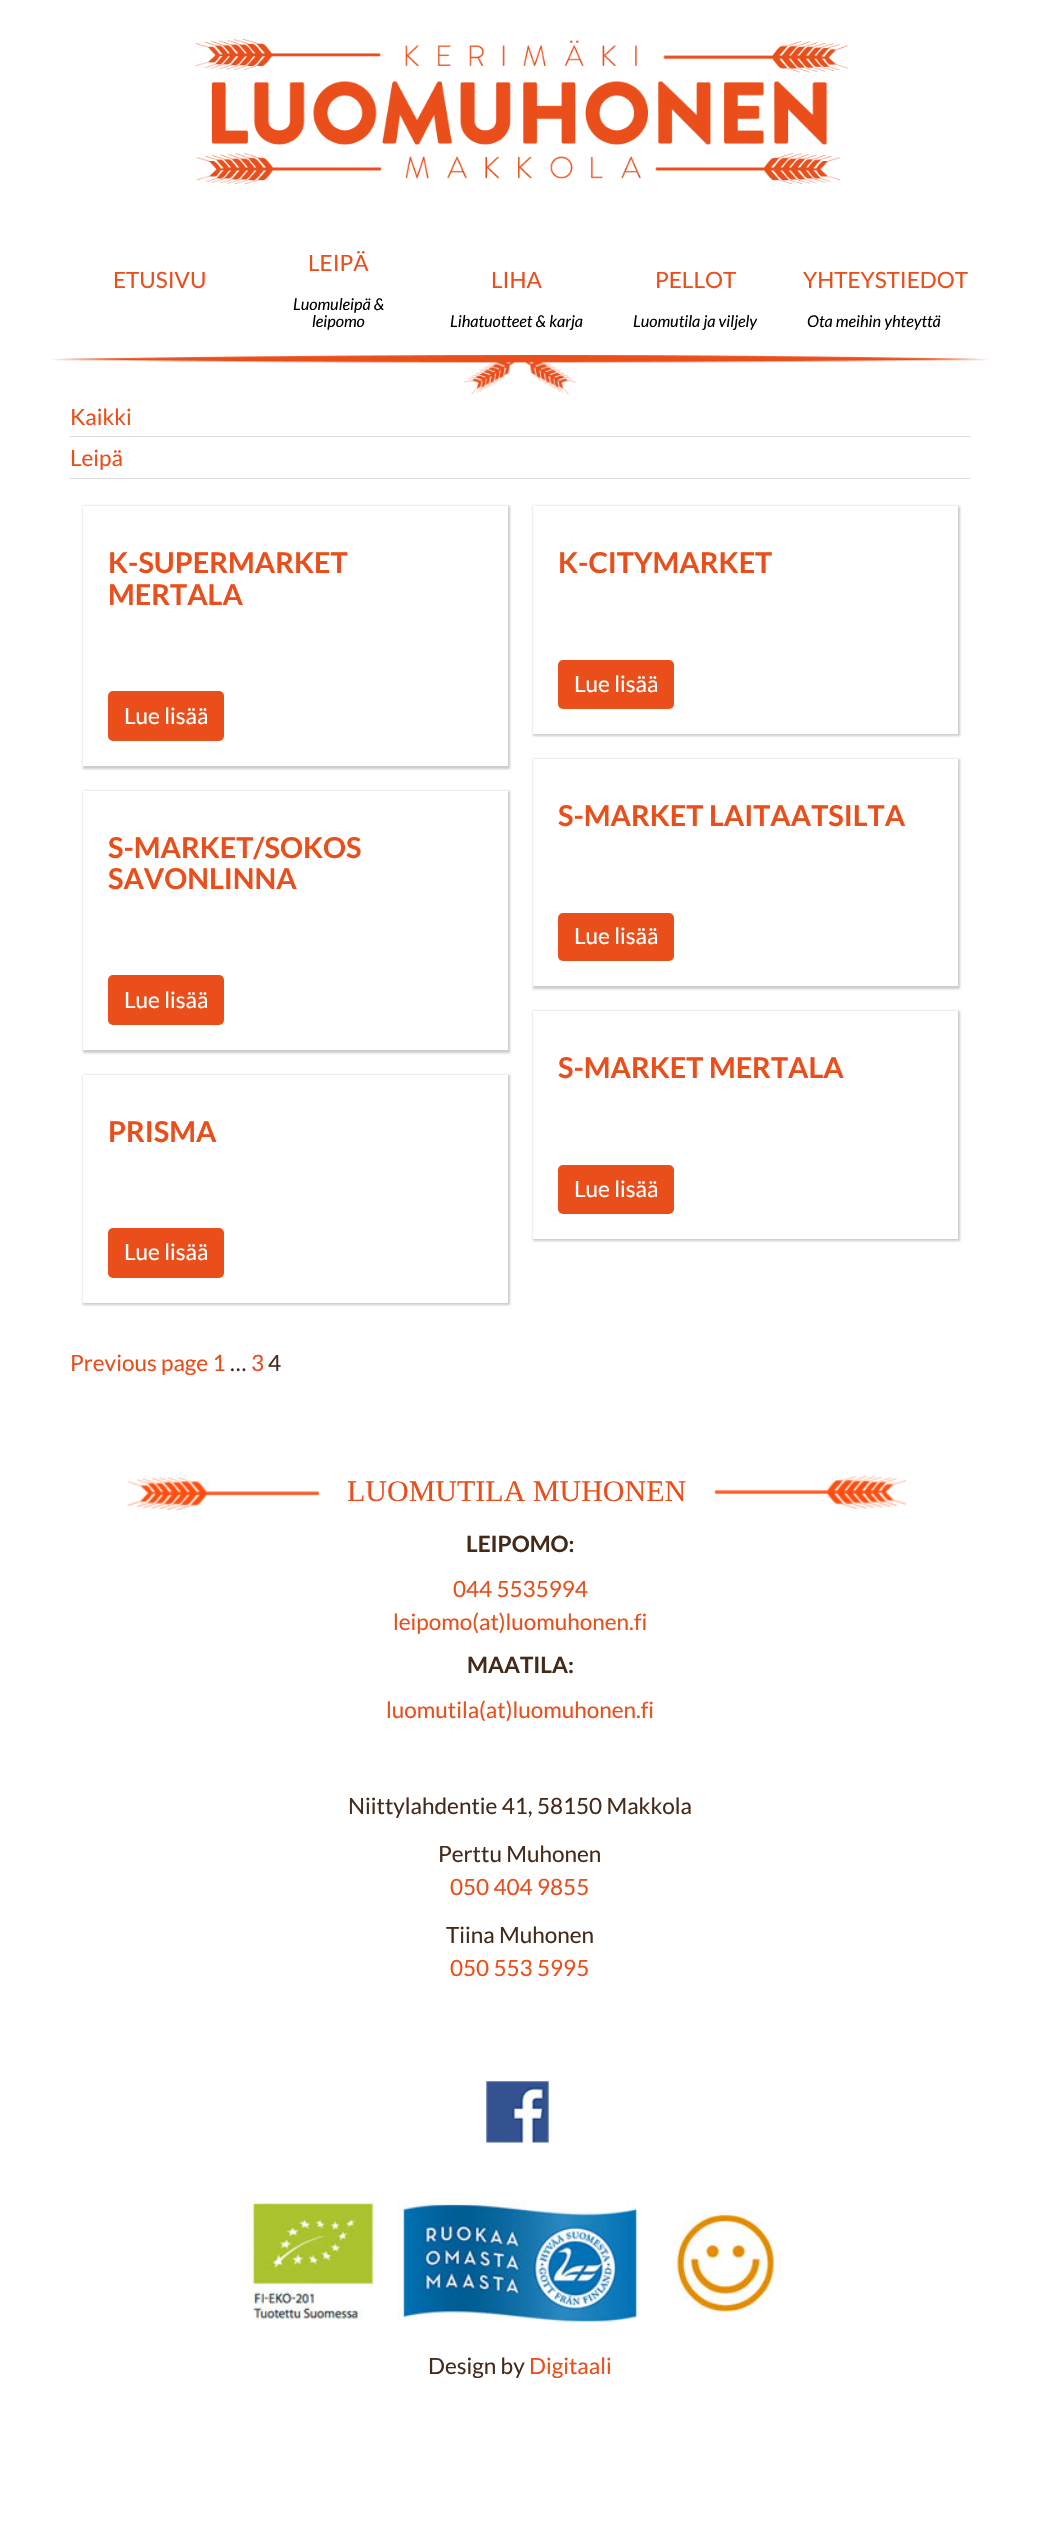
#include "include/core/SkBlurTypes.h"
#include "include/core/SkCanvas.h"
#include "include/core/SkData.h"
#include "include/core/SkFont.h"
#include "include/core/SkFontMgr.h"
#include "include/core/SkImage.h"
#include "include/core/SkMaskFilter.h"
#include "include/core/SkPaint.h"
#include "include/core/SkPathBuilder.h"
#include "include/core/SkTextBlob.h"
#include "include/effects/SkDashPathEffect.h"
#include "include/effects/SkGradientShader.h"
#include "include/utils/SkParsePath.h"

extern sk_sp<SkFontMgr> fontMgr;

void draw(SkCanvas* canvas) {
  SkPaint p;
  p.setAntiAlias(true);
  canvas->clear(SK_ColorWHITE);
  canvas->drawImageRect(SkImages::DeferredFromEncodedData(SkData::MakeFromFileName("images/1.png")), SkRect::MakeLTRB(195, 39, 849, 184), SkSamplingOptions());
  canvas->drawImageRect(SkImages::DeferredFromEncodedData(SkData::MakeFromFileName("images/2.png")), SkRect::MakeLTRB(51, 355, 989, 395), SkSamplingOptions());
  p.setColor(SkColorSetRGB(221, 221, 221));
  canvas->drawRect(SkRect::MakeLTRB(70, 436, 970, 437), p);
  canvas->drawRect(SkRect::MakeLTRB(70, 478, 970, 479), p);
  canvas->save();
  canvas->clipPath(SkPathBuilder(SkPathFillType::kEvenOdd).moveTo(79, 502).lineTo(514, 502).lineTo(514, 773).lineTo(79, 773).close().moveTo(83, 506).lineTo(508, 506).lineTo(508, 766).lineTo(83, 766).close().detach(), true);
  p.setColor(SkColorSetARGB(51, 0, 0, 0));
  p.setMaskFilter(SkMaskFilter::MakeBlur(kNormal_SkBlurStyle, 1));
  canvas->drawRect(SkRect::MakeLTRB(83, 506, 510, 769), p);
  p.setMaskFilter(nullptr);
  canvas->restore();
  p.setColor(SkColorSetRGB(233, 78, 27));
  canvas->drawRoundRect(SkRect::MakeLTRB(108, 691, 224, 741), 5, 5, p);
  canvas->save();
  canvas->clipPath(SkPathBuilder(SkPathFillType::kEvenOdd).moveTo(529, 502).lineTo(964, 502).lineTo(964, 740).lineTo(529, 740).close().moveTo(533, 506).lineTo(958, 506).lineTo(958, 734).lineTo(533, 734).close().detach(), true);
  p.setColor(SkColorSetARGB(51, 0, 0, 0));
  p.setMaskFilter(SkMaskFilter::MakeBlur(kNormal_SkBlurStyle, 1));
  canvas->drawRect(SkRect::MakeLTRB(533, 506, 960, 736), p);
  p.setMaskFilter(nullptr);
  canvas->restore();
  p.setColor(SkColorSetRGB(233, 78, 27));
  canvas->drawRoundRect(SkRect::MakeLTRB(558, 660, 674, 709), 5, 5, p);
  canvas->save();
  canvas->clipPath(SkPathBuilder(SkPathFillType::kEvenOdd).moveTo(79, 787).lineTo(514, 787).lineTo(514, 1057).lineTo(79, 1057).close().moveTo(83, 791).lineTo(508, 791).lineTo(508, 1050).lineTo(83, 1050).close().detach(), true);
  p.setColor(SkColorSetARGB(51, 0, 0, 0));
  p.setMaskFilter(SkMaskFilter::MakeBlur(kNormal_SkBlurStyle, 1));
  canvas->drawRect(SkRect::MakeLTRB(83, 791, 510, 1053), p);
  p.setMaskFilter(nullptr);
  canvas->restore();
  p.setColor(SkColorSetRGB(233, 78, 27));
  canvas->drawRoundRect(SkRect::MakeLTRB(108, 975, 224, 1025), 5, 5, p);
  canvas->save();
  canvas->clipPath(SkPathBuilder(SkPathFillType::kEvenOdd).moveTo(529, 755).lineTo(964, 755).lineTo(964, 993).lineTo(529, 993).close().moveTo(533, 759).lineTo(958, 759).lineTo(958, 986).lineTo(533, 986).close().detach(), true);
  p.setColor(SkColorSetARGB(51, 0, 0, 0));
  p.setMaskFilter(SkMaskFilter::MakeBlur(kNormal_SkBlurStyle, 1));
  canvas->drawRect(SkRect::MakeLTRB(533, 759, 960, 989), p);
  p.setMaskFilter(nullptr);
  canvas->restore();
  p.setColor(SkColorSetRGB(233, 78, 27));
  canvas->drawRoundRect(SkRect::MakeLTRB(558, 913, 674, 961), 5, 5, p);
  canvas->save();
  canvas->clipPath(SkPathBuilder(SkPathFillType::kEvenOdd).moveTo(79, 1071).lineTo(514, 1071).lineTo(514, 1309).lineTo(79, 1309).close().moveTo(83, 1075).lineTo(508, 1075).lineTo(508, 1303).lineTo(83, 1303).close().detach(), true);
  p.setColor(SkColorSetARGB(51, 0, 0, 0));
  p.setMaskFilter(SkMaskFilter::MakeBlur(kNormal_SkBlurStyle, 1));
  canvas->drawRect(SkRect::MakeLTRB(83, 1075, 510, 1305), p);
  p.setMaskFilter(nullptr);
  canvas->restore();
  p.setColor(SkColorSetRGB(233, 78, 27));
  canvas->drawRoundRect(SkRect::MakeLTRB(108, 1228, 224, 1278), 5, 5, p);
  canvas->save();
  canvas->clipPath(SkPathBuilder(SkPathFillType::kEvenOdd).moveTo(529, 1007).lineTo(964, 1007).lineTo(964, 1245).lineTo(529, 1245).close().moveTo(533, 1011).lineTo(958, 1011).lineTo(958, 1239).lineTo(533, 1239).close().detach(), true);
  p.setColor(SkColorSetARGB(51, 0, 0, 0));
  p.setMaskFilter(SkMaskFilter::MakeBlur(kNormal_SkBlurStyle, 1));
  canvas->drawRect(SkRect::MakeLTRB(533, 1011, 960, 1241), p);
  p.setMaskFilter(nullptr);
  canvas->restore();
  p.setColor(SkColorSetRGB(233, 78, 27));
  canvas->drawRoundRect(SkRect::MakeLTRB(558, 1165, 674, 1214), 5, 5, p);
  canvas->drawImageRect(SkImages::DeferredFromEncodedData(SkData::MakeFromFileName("images/3.png")), SkRect::MakeLTRB(127, 1477, 319, 1511), SkSamplingOptions());
  canvas->drawImageRect(SkImages::DeferredFromEncodedData(SkData::MakeFromFileName("images/4.png")), SkRect::MakeLTRB(714, 1476, 907, 1509), SkSamplingOptions());
  canvas->drawImageRect(SkImages::DeferredFromEncodedData(SkData::MakeFromFileName("images/5.png")), SkRect::MakeLTRB(486, 2081, 549, 2143), SkSamplingOptions());
  canvas->drawImageRect(SkImages::DeferredFromEncodedData(SkData::MakeFromFileName("images/6.png")), SkRect::MakeLTRB(244, 2200, 374, 2320), SkSamplingOptions());
  canvas->drawImageRect(SkImages::DeferredFromEncodedData(SkData::MakeFromFileName("images/7.png")), SkRect::MakeLTRB(396, 2200, 637, 2326), SkSamplingOptions());
  canvas->drawImageRect(SkImages::DeferredFromEncodedData(SkData::MakeFromFileName("images/8.png")), SkRect::MakeLTRB(672, 2210, 783, 2320), SkSamplingOptions());
  SkFont font1(fontMgr->matchFamilyStyle("Lato", SkFontStyle::Normal()), 22.5f);
  font1.setSubpixel(true);
  canvas->drawString("ETUSIVU", 113, 288, font1, p);
  canvas->drawString("LEIPÄ", 308, 271, font1, p);
  SkFont font2(fontMgr->matchFamilyStyle("Lato", SkFontStyle::Italic()), 16.25f);
  font2.setSubpixel(true);
  p.setColor(SK_ColorBLACK);
  canvas->drawString("Luomuleipä &", 293, 310, font2, p);
  canvas->drawString("leipomo", 312, 327, font2, p);
  p.setColor(SkColorSetRGB(233, 78, 27));
  canvas->drawString("LIHA", 491, 288, font1, p);
  p.setColor(SK_ColorBLACK);
  canvas->drawString("Lihatuotteet & karja", 450, 327, font2, p);
  p.setColor(SkColorSetRGB(233, 78, 27));
  canvas->drawString("PELLOT", 655, 288, font1, p);
  p.setColor(SK_ColorBLACK);
  canvas->drawString("Luomutila ja viljely", 633, 327, font2, p);
  p.setColor(SkColorSetRGB(233, 78, 27));
  canvas->drawString("YHTEYSTIEDOT", 803, 288, font1, p);
  p.setColor(SK_ColorBLACK);
  canvas->drawString("Ota meihin yhteyttä", 807, 327, font2, p);
  p.setColor(SkColorSetRGB(233, 78, 27));
  canvas->drawString("Kaikki", 70, 425, font1, p);
  canvas->drawString("Leipä", 70, 466, font1, p);
  SkFont font3(fontMgr->matchFamilyStyle("Lato", SkFontStyle::Bold()), 28.75f);
  font3.setSubpixel(true);
  canvas->drawString("K-SUPERMARKET", 108, 573, font3, p);
  canvas->drawString("MERTALA", 108, 605, font3, p);
  p.setColor(SK_ColorWHITE);
  canvas->drawString("Lue lisää", 124, 724, font1, p);
  p.setColor(SkColorSetRGB(233, 78, 27));
  canvas->drawString("K-CITYMARKET", 558, 573, font3, p);
  p.setColor(SK_ColorWHITE);
  canvas->drawString("Lue lisää", 574, 692, font1, p);
  p.setColor(SkColorSetRGB(233, 78, 27));
  canvas->drawString("S-MARKET/SOKOS", 108, 858, font3, p);
  canvas->drawString("SAVONLINNA", 108, 889, font3, p);
  p.setColor(SK_ColorWHITE);
  canvas->drawString("Lue lisää", 124, 1008, font1, p);
  p.setColor(SkColorSetRGB(233, 78, 27));
  canvas->drawString("S-MARKET LAITAATSILTA", 558, 826, font3, p);
  p.setColor(SK_ColorWHITE);
  canvas->drawString("Lue lisää", 574, 944, font1, p);
  p.setColor(SkColorSetRGB(233, 78, 27));
  canvas->drawString("PRISMA", 108, 1142, font3, p);
  p.setColor(SK_ColorWHITE);
  canvas->drawString("Lue lisää", 124, 1260, font1, p);
  p.setColor(SkColorSetRGB(233, 78, 27));
  canvas->drawString("S-MARKET MERTALA", 558, 1078, font3, p);
  p.setColor(SK_ColorWHITE);
  canvas->drawString("Lue lisää", 574, 1197, font1, p);
  p.setColor(SkColorSetRGB(233, 78, 27));
  canvas->drawString("Previous page 1", 70, 1371, font1, p);
  p.setColor(SkColorSetRGB(68, 42, 25));
  canvas->drawString("…", 230, 1371, font1, p);
  p.setColor(SkColorSetRGB(233, 78, 27));
  canvas->drawString("3", 251, 1371, font1, p);
  p.setColor(SkColorSetRGB(68, 42, 25));
  canvas->drawString("4", 268, 1371, font1, p);
  SkFont font4(fontMgr->matchFamilyStyle("Liberation Serif", SkFontStyle::Normal()), 30);
  font4.setSubpixel(true);
  p.setColor(SkColorSetRGB(233, 78, 27));
  canvas->drawString("LUOMUTILA MUHONEN", 347, 1501, font4, p);
  SkFont font5(fontMgr->matchFamilyStyle("Lato", SkFontStyle::Bold()), 22.5f);
  font5.setSubpixel(true);
  p.setColor(SkColorSetRGB(68, 42, 25));
  canvas->drawString("LEIPOMO:", 466, 1552, font5, p);
  p.setColor(SkColorSetRGB(233, 78, 27));
  canvas->drawString("044 5535994", 453, 1597, font1, p);
  canvas->drawString("leipomo(at)luomuhonen.fi", 393, 1630, font1, p);
  p.setColor(SkColorSetRGB(68, 42, 25));
  canvas->drawString("MAATILA:", 467, 1673, font5, p);
  p.setColor(SkColorSetRGB(233, 78, 27));
  canvas->drawString("luomutila(at)luomuhonen.fi", 386, 1718, font1, p);
  p.setColor(SkColorSetRGB(68, 42, 25));
  canvas->drawString("Niittylahdentie 41, 58150 Makkola", 348, 1814, font1, p);
  canvas->drawString("Perttu Muhonen", 438, 1862, font1, p);
  p.setColor(SkColorSetRGB(233, 78, 27));
  canvas->drawString("050 404 9855", 450, 1895, font1, p);
  p.setColor(SkColorSetRGB(68, 42, 25));
  canvas->drawString("Tiina Muhonen", 446, 1943, font1, p);
  p.setColor(SkColorSetRGB(233, 78, 27));
  canvas->drawString("050 553 5995", 450, 1976, font1, p);
  p.setColor(SkColorSetRGB(68, 42, 25));
  canvas->drawString("Design by", 428, 2374, font1, p);
  p.setColor(SkColorSetRGB(233, 78, 27));
  canvas->drawString("Digitaali", 529, 2374, font1, p);
}
